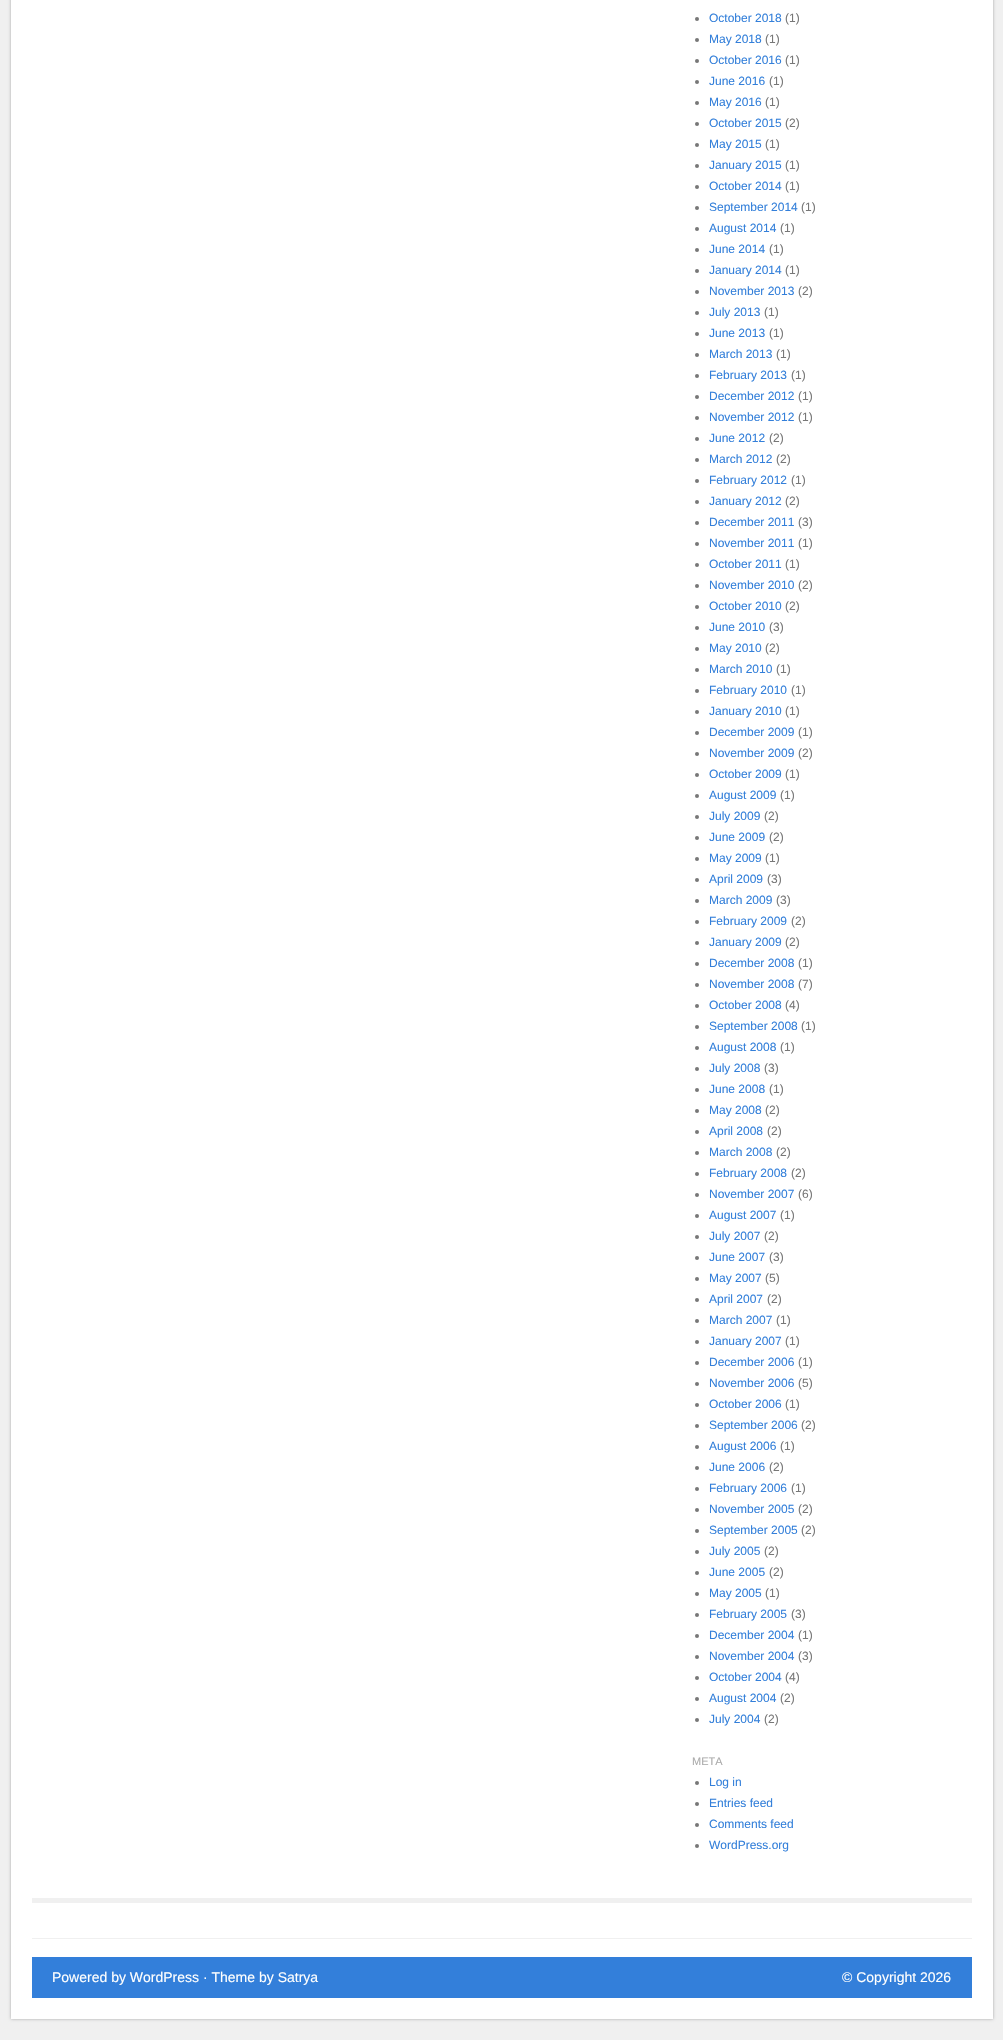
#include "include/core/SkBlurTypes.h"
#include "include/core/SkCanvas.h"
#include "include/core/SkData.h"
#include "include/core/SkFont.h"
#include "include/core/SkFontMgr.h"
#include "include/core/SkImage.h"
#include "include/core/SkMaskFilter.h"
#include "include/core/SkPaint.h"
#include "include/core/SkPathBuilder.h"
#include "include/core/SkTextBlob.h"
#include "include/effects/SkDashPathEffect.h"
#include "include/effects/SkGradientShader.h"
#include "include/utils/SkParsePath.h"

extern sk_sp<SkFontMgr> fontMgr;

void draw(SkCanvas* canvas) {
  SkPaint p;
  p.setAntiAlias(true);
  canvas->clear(SkColorSetRGB(240, 240, 240));
  p.setColor(SkColorSetARGB(77, 0, 0, 0));
  p.setMaskFilter(SkMaskFilter::MakeBlur(kNormal_SkBlurStyle, 1.5f));
  canvas->drawRect(SkRect::MakeLTRB(11, -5, 993, 2019), p);
  p.setMaskFilter(nullptr);
  p.setColor(SK_ColorWHITE);
  canvas->drawRect(SkRect::MakeLTRB(11, 0, 993, 2019), p);
  p.setColor(SkColorSetRGB(119, 119, 119));
  canvas->drawCircle(697, 19, 2, p);
  canvas->drawCircle(697, 40, 2, p);
  canvas->drawCircle(697, 61, 2, p);
  canvas->drawCircle(697, 82, 2, p);
  canvas->drawCircle(697, 103, 2, p);
  canvas->drawCircle(697, 124, 2, p);
  canvas->drawCircle(697, 145, 2, p);
  canvas->drawCircle(697, 166, 2, p);
  canvas->drawCircle(697, 187, 2, p);
  canvas->drawCircle(697, 208, 2, p);
  canvas->drawCircle(697, 229, 2, p);
  canvas->drawCircle(697, 250, 2, p);
  canvas->drawCircle(697, 271, 2, p);
  canvas->drawCircle(697, 292, 2, p);
  canvas->drawCircle(697, 313, 2, p);
  canvas->drawCircle(697, 334, 2, p);
  canvas->drawCircle(697, 355, 2, p);
  canvas->drawCircle(697, 376, 2, p);
  canvas->drawCircle(697, 397, 2, p);
  canvas->drawCircle(697, 418, 2, p);
  canvas->drawCircle(697, 439, 2, p);
  canvas->drawCircle(697, 460, 2, p);
  canvas->drawCircle(697, 481, 2, p);
  canvas->drawCircle(697, 502, 2, p);
  canvas->drawCircle(697, 523, 2, p);
  canvas->drawCircle(697, 544, 2, p);
  canvas->drawCircle(697, 565, 2, p);
  canvas->drawCircle(697, 586, 2, p);
  canvas->drawCircle(697, 607, 2, p);
  canvas->drawCircle(697, 628, 2, p);
  canvas->drawCircle(697, 649, 2, p);
  canvas->drawCircle(697, 670, 2, p);
  canvas->drawCircle(697, 691, 2, p);
  canvas->drawCircle(697, 712, 2, p);
  canvas->drawCircle(697, 733, 2, p);
  canvas->drawCircle(697, 754, 2, p);
  canvas->drawCircle(697, 775, 2, p);
  canvas->drawCircle(697, 796, 2, p);
  canvas->drawCircle(697, 817, 2, p);
  canvas->drawCircle(697, 838, 2, p);
  canvas->drawCircle(697, 859, 2, p);
  canvas->drawCircle(697, 880, 2, p);
  canvas->drawCircle(697, 901, 2, p);
  canvas->drawCircle(697, 922, 2, p);
  canvas->drawCircle(697, 943, 2, p);
  canvas->drawCircle(697, 964, 2, p);
  canvas->drawCircle(697, 985, 2, p);
  canvas->drawCircle(697, 1006, 2, p);
  canvas->drawCircle(697, 1027, 2, p);
  canvas->drawCircle(697, 1048, 2, p);
  canvas->drawCircle(697, 1069, 2, p);
  canvas->drawCircle(697, 1090, 2, p);
  canvas->drawCircle(697, 1111, 2, p);
  canvas->drawCircle(697, 1132, 2, p);
  canvas->drawCircle(697, 1153, 2, p);
  canvas->drawCircle(697, 1174, 2, p);
  canvas->drawCircle(697, 1195, 2, p);
  canvas->drawCircle(697, 1216, 2, p);
  canvas->drawCircle(697, 1237, 2, p);
  canvas->drawCircle(697, 1258, 2, p);
  canvas->drawCircle(697, 1279, 2, p);
  canvas->drawCircle(697, 1300, 2, p);
  canvas->drawCircle(697, 1321, 2, p);
  canvas->drawCircle(697, 1342, 2, p);
  canvas->drawCircle(697, 1363, 2, p);
  canvas->drawCircle(697, 1384, 2, p);
  canvas->drawCircle(697, 1405, 2, p);
  canvas->drawCircle(697, 1426, 2, p);
  canvas->drawCircle(697, 1447, 2, p);
  canvas->drawCircle(697, 1468, 2, p);
  canvas->drawCircle(697, 1489, 2, p);
  canvas->drawCircle(697, 1510, 2, p);
  canvas->drawCircle(697, 1531, 2, p);
  canvas->drawCircle(697, 1552, 2, p);
  canvas->drawCircle(697, 1573, 2, p);
  canvas->drawCircle(697, 1594, 2, p);
  canvas->drawCircle(697, 1615, 2, p);
  canvas->drawCircle(697, 1636, 2, p);
  canvas->drawCircle(697, 1657, 2, p);
  canvas->drawCircle(697, 1678, 2, p);
  canvas->drawCircle(697, 1699, 2, p);
  canvas->drawCircle(697, 1720, 2, p);
  canvas->drawCircle(697, 1783, 2, p);
  canvas->drawCircle(697, 1804, 2, p);
  canvas->drawCircle(697, 1825, 2, p);
  canvas->drawCircle(697, 1846, 2, p);
  p.setColor(SkColorSetRGB(240, 240, 240));
  canvas->drawRect(SkRect::MakeLTRB(32, 1898, 972, 1903), p);
  canvas->drawRect(SkRect::MakeLTRB(32, 1938, 972, 1939), p);
  p.setColor(SkColorSetRGB(51, 127, 218));
  canvas->drawRect(SkRect::MakeLTRB(32, 1957, 972, 1998), p);
  SkFont font1(fontMgr->matchFamilyStyle("Liberation Sans", SkFontStyle::Normal()), 12);
  font1.setSubpixel(true);
  canvas->drawString("October 2018", 709, 22, font1, p);
  p.setColor(SkColorSetRGB(119, 119, 119));
  canvas->drawString("(1)", 785, 22, font1, p);
  p.setColor(SkColorSetRGB(51, 127, 218));
  canvas->drawString("May 2018", 709, 43, font1, p);
  p.setColor(SkColorSetRGB(119, 119, 119));
  canvas->drawString("(1)", 765, 43, font1, p);
  p.setColor(SkColorSetRGB(51, 127, 218));
  canvas->drawString("October 2016", 709, 64, font1, p);
  p.setColor(SkColorSetRGB(119, 119, 119));
  canvas->drawString("(1)", 785, 64, font1, p);
  p.setColor(SkColorSetRGB(51, 127, 218));
  canvas->drawString("June 2016", 709, 85, font1, p);
  p.setColor(SkColorSetRGB(119, 119, 119));
  canvas->drawString("(1)", 769, 85, font1, p);
  p.setColor(SkColorSetRGB(51, 127, 218));
  canvas->drawString("May 2016", 709, 106, font1, p);
  p.setColor(SkColorSetRGB(119, 119, 119));
  canvas->drawString("(1)", 765, 106, font1, p);
  p.setColor(SkColorSetRGB(51, 127, 218));
  canvas->drawString("October 2015", 709, 127, font1, p);
  p.setColor(SkColorSetRGB(119, 119, 119));
  canvas->drawString("(2)", 785, 127, font1, p);
  p.setColor(SkColorSetRGB(51, 127, 218));
  canvas->drawString("May 2015", 709, 148, font1, p);
  p.setColor(SkColorSetRGB(119, 119, 119));
  canvas->drawString("(1)", 765, 148, font1, p);
  p.setColor(SkColorSetRGB(51, 127, 218));
  canvas->drawString("January 2015", 709, 169, font1, p);
  p.setColor(SkColorSetRGB(119, 119, 119));
  canvas->drawString("(1)", 785, 169, font1, p);
  p.setColor(SkColorSetRGB(51, 127, 218));
  canvas->drawString("October 2014", 709, 190, font1, p);
  p.setColor(SkColorSetRGB(119, 119, 119));
  canvas->drawString("(1)", 785, 190, font1, p);
  p.setColor(SkColorSetRGB(51, 127, 218));
  canvas->drawString("September 2014", 709, 211, font1, p);
  p.setColor(SkColorSetRGB(119, 119, 119));
  canvas->drawString("(1)", 801, 211, font1, p);
  p.setColor(SkColorSetRGB(51, 127, 218));
  canvas->drawString("August 2014", 709, 232, font1, p);
  p.setColor(SkColorSetRGB(119, 119, 119));
  canvas->drawString("(1)", 780, 232, font1, p);
  p.setColor(SkColorSetRGB(51, 127, 218));
  canvas->drawString("June 2014", 709, 253, font1, p);
  p.setColor(SkColorSetRGB(119, 119, 119));
  canvas->drawString("(1)", 769, 253, font1, p);
  p.setColor(SkColorSetRGB(51, 127, 218));
  canvas->drawString("January 2014", 709, 274, font1, p);
  p.setColor(SkColorSetRGB(119, 119, 119));
  canvas->drawString("(1)", 785, 274, font1, p);
  p.setColor(SkColorSetRGB(51, 127, 218));
  canvas->drawString("November 2013", 709, 295, font1, p);
  p.setColor(SkColorSetRGB(119, 119, 119));
  canvas->drawString("(2)", 798, 295, font1, p);
  p.setColor(SkColorSetRGB(51, 127, 218));
  canvas->drawString("July 2013", 709, 316, font1, p);
  p.setColor(SkColorSetRGB(119, 119, 119));
  canvas->drawString("(1)", 764, 316, font1, p);
  p.setColor(SkColorSetRGB(51, 127, 218));
  canvas->drawString("June 2013", 709, 337, font1, p);
  p.setColor(SkColorSetRGB(119, 119, 119));
  canvas->drawString("(1)", 769, 337, font1, p);
  p.setColor(SkColorSetRGB(51, 127, 218));
  canvas->drawString("March 2013", 709, 358, font1, p);
  p.setColor(SkColorSetRGB(119, 119, 119));
  canvas->drawString("(1)", 776, 358, font1, p);
  p.setColor(SkColorSetRGB(51, 127, 218));
  canvas->drawString("February 2013", 709, 379, font1, p);
  p.setColor(SkColorSetRGB(119, 119, 119));
  canvas->drawString("(1)", 791, 379, font1, p);
  p.setColor(SkColorSetRGB(51, 127, 218));
  canvas->drawString("December 2012", 709, 400, font1, p);
  p.setColor(SkColorSetRGB(119, 119, 119));
  canvas->drawString("(1)", 798, 400, font1, p);
  p.setColor(SkColorSetRGB(51, 127, 218));
  canvas->drawString("November 2012", 709, 421, font1, p);
  p.setColor(SkColorSetRGB(119, 119, 119));
  canvas->drawString("(1)", 798, 421, font1, p);
  p.setColor(SkColorSetRGB(51, 127, 218));
  canvas->drawString("June 2012", 709, 442, font1, p);
  p.setColor(SkColorSetRGB(119, 119, 119));
  canvas->drawString("(2)", 769, 442, font1, p);
  p.setColor(SkColorSetRGB(51, 127, 218));
  canvas->drawString("March 2012", 709, 463, font1, p);
  p.setColor(SkColorSetRGB(119, 119, 119));
  canvas->drawString("(2)", 776, 463, font1, p);
  p.setColor(SkColorSetRGB(51, 127, 218));
  canvas->drawString("February 2012", 709, 484, font1, p);
  p.setColor(SkColorSetRGB(119, 119, 119));
  canvas->drawString("(1)", 791, 484, font1, p);
  p.setColor(SkColorSetRGB(51, 127, 218));
  canvas->drawString("January 2012", 709, 505, font1, p);
  p.setColor(SkColorSetRGB(119, 119, 119));
  canvas->drawString("(2)", 785, 505, font1, p);
  p.setColor(SkColorSetRGB(51, 127, 218));
  canvas->drawString("December 2011", 709, 526, font1, p);
  p.setColor(SkColorSetRGB(119, 119, 119));
  canvas->drawString("(3)", 798, 526, font1, p);
  p.setColor(SkColorSetRGB(51, 127, 218));
  canvas->drawString("November 2011", 709, 547, font1, p);
  p.setColor(SkColorSetRGB(119, 119, 119));
  canvas->drawString("(1)", 798, 547, font1, p);
  p.setColor(SkColorSetRGB(51, 127, 218));
  canvas->drawString("October 2011", 709, 568, font1, p);
  p.setColor(SkColorSetRGB(119, 119, 119));
  canvas->drawString("(1)", 785, 568, font1, p);
  p.setColor(SkColorSetRGB(51, 127, 218));
  canvas->drawString("November 2010", 709, 589, font1, p);
  p.setColor(SkColorSetRGB(119, 119, 119));
  canvas->drawString("(2)", 798, 589, font1, p);
  p.setColor(SkColorSetRGB(51, 127, 218));
  canvas->drawString("October 2010", 709, 610, font1, p);
  p.setColor(SkColorSetRGB(119, 119, 119));
  canvas->drawString("(2)", 785, 610, font1, p);
  p.setColor(SkColorSetRGB(51, 127, 218));
  canvas->drawString("June 2010", 709, 631, font1, p);
  p.setColor(SkColorSetRGB(119, 119, 119));
  canvas->drawString("(3)", 769, 631, font1, p);
  p.setColor(SkColorSetRGB(51, 127, 218));
  canvas->drawString("May 2010", 709, 652, font1, p);
  p.setColor(SkColorSetRGB(119, 119, 119));
  canvas->drawString("(2)", 765, 652, font1, p);
  p.setColor(SkColorSetRGB(51, 127, 218));
  canvas->drawString("March 2010", 709, 673, font1, p);
  p.setColor(SkColorSetRGB(119, 119, 119));
  canvas->drawString("(1)", 776, 673, font1, p);
  p.setColor(SkColorSetRGB(51, 127, 218));
  canvas->drawString("February 2010", 709, 694, font1, p);
  p.setColor(SkColorSetRGB(119, 119, 119));
  canvas->drawString("(1)", 791, 694, font1, p);
  p.setColor(SkColorSetRGB(51, 127, 218));
  canvas->drawString("January 2010", 709, 715, font1, p);
  p.setColor(SkColorSetRGB(119, 119, 119));
  canvas->drawString("(1)", 785, 715, font1, p);
  p.setColor(SkColorSetRGB(51, 127, 218));
  canvas->drawString("December 2009", 709, 736, font1, p);
  p.setColor(SkColorSetRGB(119, 119, 119));
  canvas->drawString("(1)", 798, 736, font1, p);
  p.setColor(SkColorSetRGB(51, 127, 218));
  canvas->drawString("November 2009", 709, 757, font1, p);
  p.setColor(SkColorSetRGB(119, 119, 119));
  canvas->drawString("(2)", 798, 757, font1, p);
  p.setColor(SkColorSetRGB(51, 127, 218));
  canvas->drawString("October 2009", 709, 778, font1, p);
  p.setColor(SkColorSetRGB(119, 119, 119));
  canvas->drawString("(1)", 785, 778, font1, p);
  p.setColor(SkColorSetRGB(51, 127, 218));
  canvas->drawString("August 2009", 709, 799, font1, p);
  p.setColor(SkColorSetRGB(119, 119, 119));
  canvas->drawString("(1)", 780, 799, font1, p);
  p.setColor(SkColorSetRGB(51, 127, 218));
  canvas->drawString("July 2009", 709, 820, font1, p);
  p.setColor(SkColorSetRGB(119, 119, 119));
  canvas->drawString("(2)", 764, 820, font1, p);
  p.setColor(SkColorSetRGB(51, 127, 218));
  canvas->drawString("June 2009", 709, 841, font1, p);
  p.setColor(SkColorSetRGB(119, 119, 119));
  canvas->drawString("(2)", 769, 841, font1, p);
  p.setColor(SkColorSetRGB(51, 127, 218));
  canvas->drawString("May 2009", 709, 862, font1, p);
  p.setColor(SkColorSetRGB(119, 119, 119));
  canvas->drawString("(1)", 765, 862, font1, p);
  p.setColor(SkColorSetRGB(51, 127, 218));
  canvas->drawString("April 2009", 709, 883, font1, p);
  p.setColor(SkColorSetRGB(119, 119, 119));
  canvas->drawString("(3)", 767, 883, font1, p);
  p.setColor(SkColorSetRGB(51, 127, 218));
  canvas->drawString("March 2009", 709, 904, font1, p);
  p.setColor(SkColorSetRGB(119, 119, 119));
  canvas->drawString("(3)", 776, 904, font1, p);
  p.setColor(SkColorSetRGB(51, 127, 218));
  canvas->drawString("February 2009", 709, 925, font1, p);
  p.setColor(SkColorSetRGB(119, 119, 119));
  canvas->drawString("(2)", 791, 925, font1, p);
  p.setColor(SkColorSetRGB(51, 127, 218));
  canvas->drawString("January 2009", 709, 946, font1, p);
  p.setColor(SkColorSetRGB(119, 119, 119));
  canvas->drawString("(2)", 785, 946, font1, p);
  p.setColor(SkColorSetRGB(51, 127, 218));
  canvas->drawString("December 2008", 709, 967, font1, p);
  p.setColor(SkColorSetRGB(119, 119, 119));
  canvas->drawString("(1)", 798, 967, font1, p);
  p.setColor(SkColorSetRGB(51, 127, 218));
  canvas->drawString("November 2008", 709, 988, font1, p);
  p.setColor(SkColorSetRGB(119, 119, 119));
  canvas->drawString("(7)", 798, 988, font1, p);
  p.setColor(SkColorSetRGB(51, 127, 218));
  canvas->drawString("October 2008", 709, 1009, font1, p);
  p.setColor(SkColorSetRGB(119, 119, 119));
  canvas->drawString("(4)", 785, 1009, font1, p);
  p.setColor(SkColorSetRGB(51, 127, 218));
  canvas->drawString("September 2008", 709, 1030, font1, p);
  p.setColor(SkColorSetRGB(119, 119, 119));
  canvas->drawString("(1)", 801, 1030, font1, p);
  p.setColor(SkColorSetRGB(51, 127, 218));
  canvas->drawString("August 2008", 709, 1051, font1, p);
  p.setColor(SkColorSetRGB(119, 119, 119));
  canvas->drawString("(1)", 780, 1051, font1, p);
  p.setColor(SkColorSetRGB(51, 127, 218));
  canvas->drawString("July 2008", 709, 1072, font1, p);
  p.setColor(SkColorSetRGB(119, 119, 119));
  canvas->drawString("(3)", 764, 1072, font1, p);
  p.setColor(SkColorSetRGB(51, 127, 218));
  canvas->drawString("June 2008", 709, 1093, font1, p);
  p.setColor(SkColorSetRGB(119, 119, 119));
  canvas->drawString("(1)", 769, 1093, font1, p);
  p.setColor(SkColorSetRGB(51, 127, 218));
  canvas->drawString("May 2008", 709, 1114, font1, p);
  p.setColor(SkColorSetRGB(119, 119, 119));
  canvas->drawString("(2)", 765, 1114, font1, p);
  p.setColor(SkColorSetRGB(51, 127, 218));
  canvas->drawString("April 2008", 709, 1135, font1, p);
  p.setColor(SkColorSetRGB(119, 119, 119));
  canvas->drawString("(2)", 767, 1135, font1, p);
  p.setColor(SkColorSetRGB(51, 127, 218));
  canvas->drawString("March 2008", 709, 1156, font1, p);
  p.setColor(SkColorSetRGB(119, 119, 119));
  canvas->drawString("(2)", 776, 1156, font1, p);
  p.setColor(SkColorSetRGB(51, 127, 218));
  canvas->drawString("February 2008", 709, 1177, font1, p);
  p.setColor(SkColorSetRGB(119, 119, 119));
  canvas->drawString("(2)", 791, 1177, font1, p);
  p.setColor(SkColorSetRGB(51, 127, 218));
  canvas->drawString("November 2007", 709, 1198, font1, p);
  p.setColor(SkColorSetRGB(119, 119, 119));
  canvas->drawString("(6)", 798, 1198, font1, p);
  p.setColor(SkColorSetRGB(51, 127, 218));
  canvas->drawString("August 2007", 709, 1219, font1, p);
  p.setColor(SkColorSetRGB(119, 119, 119));
  canvas->drawString("(1)", 780, 1219, font1, p);
  p.setColor(SkColorSetRGB(51, 127, 218));
  canvas->drawString("July 2007", 709, 1240, font1, p);
  p.setColor(SkColorSetRGB(119, 119, 119));
  canvas->drawString("(2)", 764, 1240, font1, p);
  p.setColor(SkColorSetRGB(51, 127, 218));
  canvas->drawString("June 2007", 709, 1261, font1, p);
  p.setColor(SkColorSetRGB(119, 119, 119));
  canvas->drawString("(3)", 769, 1261, font1, p);
  p.setColor(SkColorSetRGB(51, 127, 218));
  canvas->drawString("May 2007", 709, 1282, font1, p);
  p.setColor(SkColorSetRGB(119, 119, 119));
  canvas->drawString("(5)", 765, 1282, font1, p);
  p.setColor(SkColorSetRGB(51, 127, 218));
  canvas->drawString("April 2007", 709, 1303, font1, p);
  p.setColor(SkColorSetRGB(119, 119, 119));
  canvas->drawString("(2)", 767, 1303, font1, p);
  p.setColor(SkColorSetRGB(51, 127, 218));
  canvas->drawString("March 2007", 709, 1324, font1, p);
  p.setColor(SkColorSetRGB(119, 119, 119));
  canvas->drawString("(1)", 776, 1324, font1, p);
  p.setColor(SkColorSetRGB(51, 127, 218));
  canvas->drawString("January 2007", 709, 1345, font1, p);
  p.setColor(SkColorSetRGB(119, 119, 119));
  canvas->drawString("(1)", 785, 1345, font1, p);
  p.setColor(SkColorSetRGB(51, 127, 218));
  canvas->drawString("December 2006", 709, 1366, font1, p);
  p.setColor(SkColorSetRGB(119, 119, 119));
  canvas->drawString("(1)", 798, 1366, font1, p);
  p.setColor(SkColorSetRGB(51, 127, 218));
  canvas->drawString("November 2006", 709, 1387, font1, p);
  p.setColor(SkColorSetRGB(119, 119, 119));
  canvas->drawString("(5)", 798, 1387, font1, p);
  p.setColor(SkColorSetRGB(51, 127, 218));
  canvas->drawString("October 2006", 709, 1408, font1, p);
  p.setColor(SkColorSetRGB(119, 119, 119));
  canvas->drawString("(1)", 785, 1408, font1, p);
  p.setColor(SkColorSetRGB(51, 127, 218));
  canvas->drawString("September 2006", 709, 1429, font1, p);
  p.setColor(SkColorSetRGB(119, 119, 119));
  canvas->drawString("(2)", 801, 1429, font1, p);
  p.setColor(SkColorSetRGB(51, 127, 218));
  canvas->drawString("August 2006", 709, 1450, font1, p);
  p.setColor(SkColorSetRGB(119, 119, 119));
  canvas->drawString("(1)", 780, 1450, font1, p);
  p.setColor(SkColorSetRGB(51, 127, 218));
  canvas->drawString("June 2006", 709, 1471, font1, p);
  p.setColor(SkColorSetRGB(119, 119, 119));
  canvas->drawString("(2)", 769, 1471, font1, p);
  p.setColor(SkColorSetRGB(51, 127, 218));
  canvas->drawString("February 2006", 709, 1492, font1, p);
  p.setColor(SkColorSetRGB(119, 119, 119));
  canvas->drawString("(1)", 791, 1492, font1, p);
  p.setColor(SkColorSetRGB(51, 127, 218));
  canvas->drawString("November 2005", 709, 1513, font1, p);
  p.setColor(SkColorSetRGB(119, 119, 119));
  canvas->drawString("(2)", 798, 1513, font1, p);
  p.setColor(SkColorSetRGB(51, 127, 218));
  canvas->drawString("September 2005", 709, 1534, font1, p);
  p.setColor(SkColorSetRGB(119, 119, 119));
  canvas->drawString("(2)", 801, 1534, font1, p);
  p.setColor(SkColorSetRGB(51, 127, 218));
  canvas->drawString("July 2005", 709, 1555, font1, p);
  p.setColor(SkColorSetRGB(119, 119, 119));
  canvas->drawString("(2)", 764, 1555, font1, p);
  p.setColor(SkColorSetRGB(51, 127, 218));
  canvas->drawString("June 2005", 709, 1576, font1, p);
  p.setColor(SkColorSetRGB(119, 119, 119));
  canvas->drawString("(2)", 769, 1576, font1, p);
  p.setColor(SkColorSetRGB(51, 127, 218));
  canvas->drawString("May 2005", 709, 1597, font1, p);
  p.setColor(SkColorSetRGB(119, 119, 119));
  canvas->drawString("(1)", 765, 1597, font1, p);
  p.setColor(SkColorSetRGB(51, 127, 218));
  canvas->drawString("February 2005", 709, 1618, font1, p);
  p.setColor(SkColorSetRGB(119, 119, 119));
  canvas->drawString("(3)", 791, 1618, font1, p);
  p.setColor(SkColorSetRGB(51, 127, 218));
  canvas->drawString("December 2004", 709, 1639, font1, p);
  p.setColor(SkColorSetRGB(119, 119, 119));
  canvas->drawString("(1)", 798, 1639, font1, p);
  p.setColor(SkColorSetRGB(51, 127, 218));
  canvas->drawString("November 2004", 709, 1660, font1, p);
  p.setColor(SkColorSetRGB(119, 119, 119));
  canvas->drawString("(3)", 798, 1660, font1, p);
  p.setColor(SkColorSetRGB(51, 127, 218));
  canvas->drawString("October 2004", 709, 1681, font1, p);
  p.setColor(SkColorSetRGB(119, 119, 119));
  canvas->drawString("(4)", 785, 1681, font1, p);
  p.setColor(SkColorSetRGB(51, 127, 218));
  canvas->drawString("August 2004", 709, 1702, font1, p);
  p.setColor(SkColorSetRGB(119, 119, 119));
  canvas->drawString("(2)", 780, 1702, font1, p);
  p.setColor(SkColorSetRGB(51, 127, 218));
  canvas->drawString("July 2004", 709, 1723, font1, p);
  p.setColor(SkColorSetRGB(119, 119, 119));
  canvas->drawString("(2)", 764, 1723, font1, p);
  SkFont font2(fontMgr->matchFamilyStyle("Liberation Sans", SkFontStyle::Normal()), 11);
  font2.setSubpixel(true);
  p.setColor(SkColorSetRGB(170, 170, 170));
  canvas->drawString("META", 692, 1765, font2, p);
  p.setColor(SkColorSetRGB(51, 127, 218));
  canvas->drawString("Log in", 709, 1786, font1, p);
  canvas->drawString("Entries feed", 709, 1807, font1, p);
  canvas->drawString("Comments feed", 709, 1828, font1, p);
  canvas->drawString("WordPress.org", 709, 1849, font1, p);
  SkFont font3(fontMgr->matchFamilyStyle("Liberation Sans", SkFontStyle::Normal()), 14);
  font3.setSubpixel(true);
  p.setColor(SK_ColorWHITE);
  canvas->drawString("Powered by WordPress · Theme by Satrya", 52, 1982, font3, p);
  canvas->drawString("© Copyright 2026", 842, 1982, font3, p);
}
